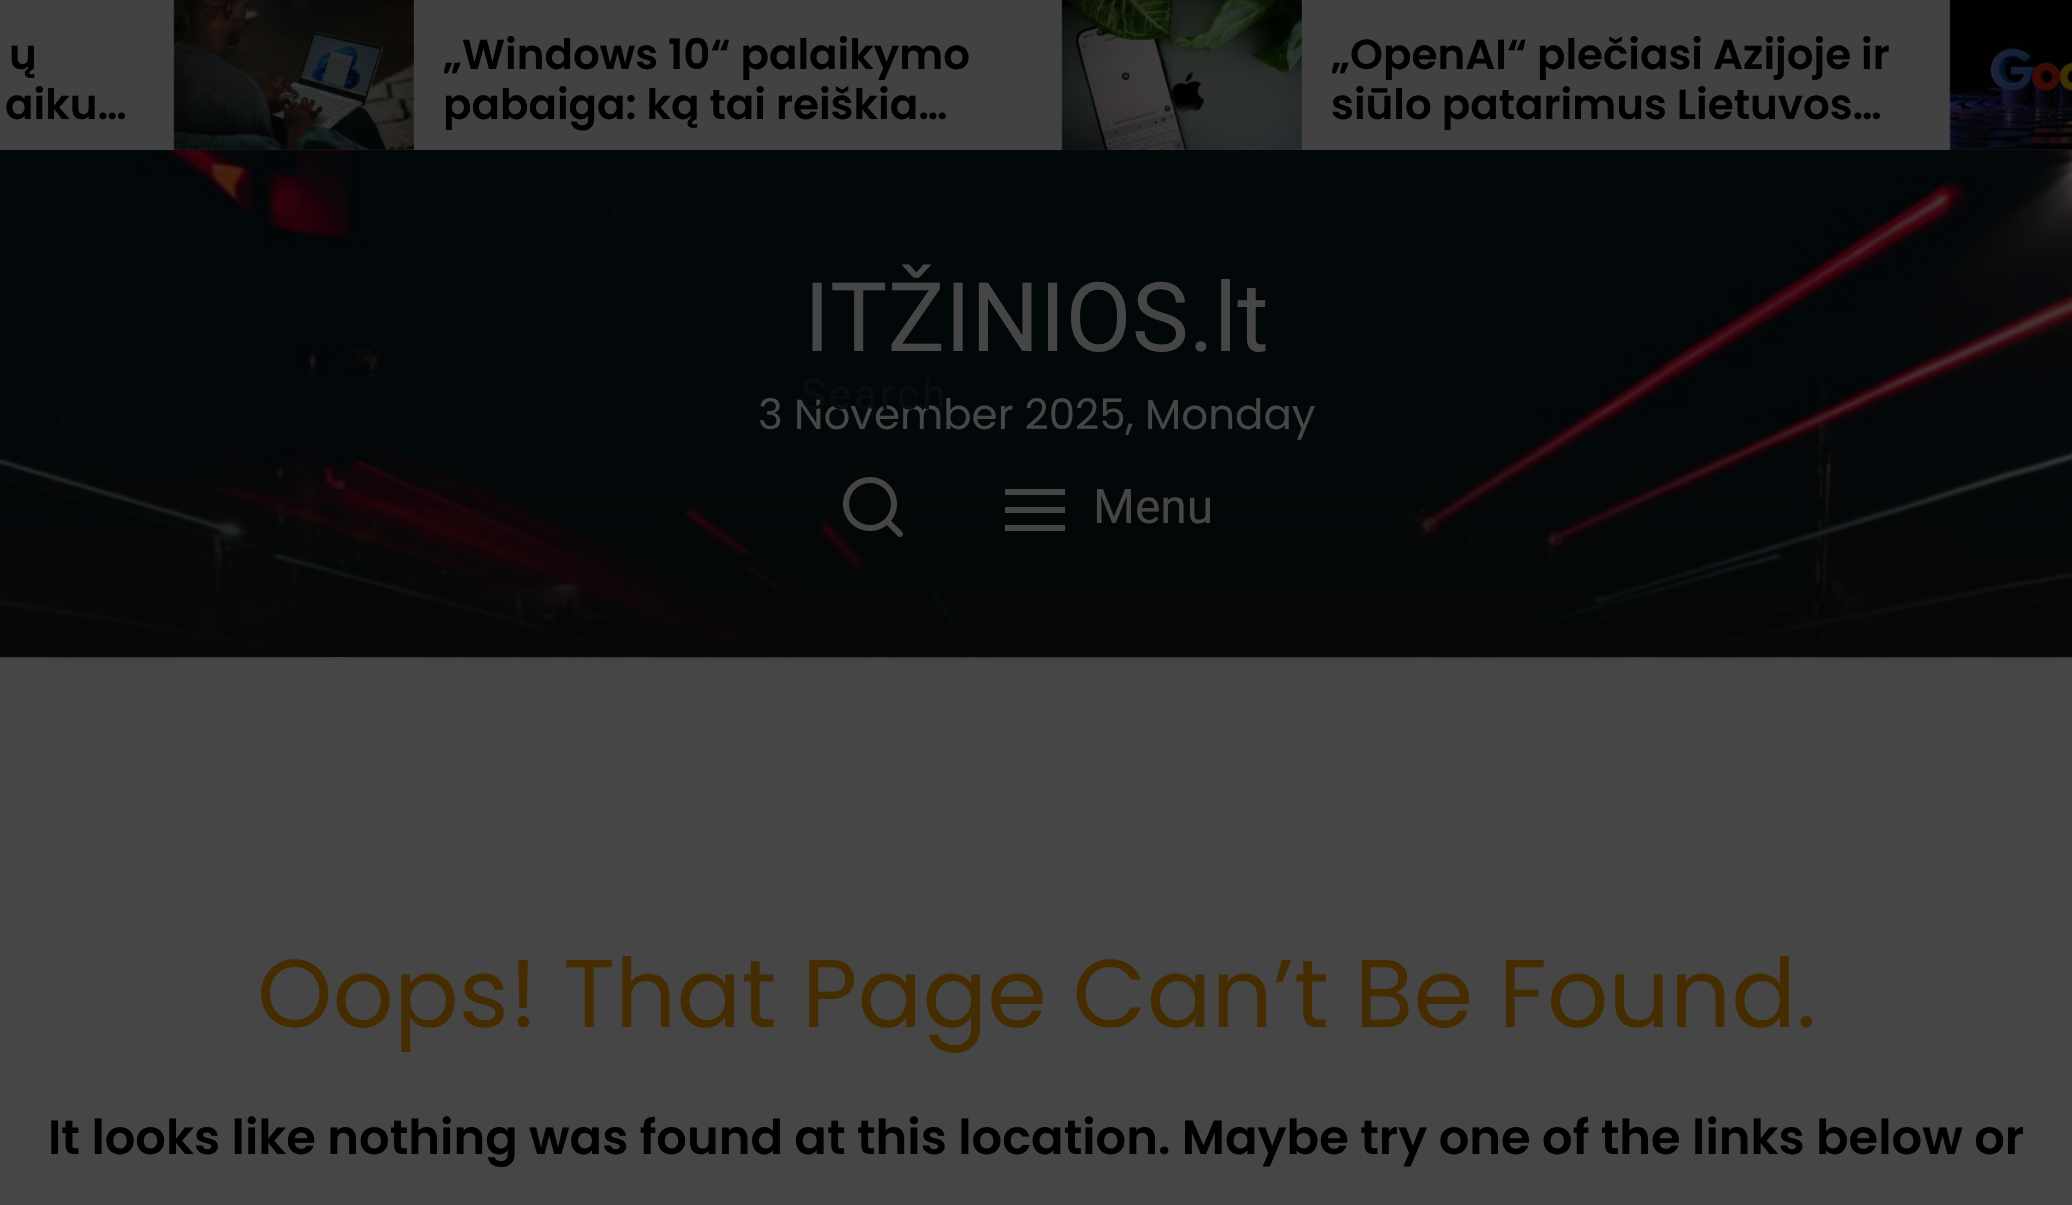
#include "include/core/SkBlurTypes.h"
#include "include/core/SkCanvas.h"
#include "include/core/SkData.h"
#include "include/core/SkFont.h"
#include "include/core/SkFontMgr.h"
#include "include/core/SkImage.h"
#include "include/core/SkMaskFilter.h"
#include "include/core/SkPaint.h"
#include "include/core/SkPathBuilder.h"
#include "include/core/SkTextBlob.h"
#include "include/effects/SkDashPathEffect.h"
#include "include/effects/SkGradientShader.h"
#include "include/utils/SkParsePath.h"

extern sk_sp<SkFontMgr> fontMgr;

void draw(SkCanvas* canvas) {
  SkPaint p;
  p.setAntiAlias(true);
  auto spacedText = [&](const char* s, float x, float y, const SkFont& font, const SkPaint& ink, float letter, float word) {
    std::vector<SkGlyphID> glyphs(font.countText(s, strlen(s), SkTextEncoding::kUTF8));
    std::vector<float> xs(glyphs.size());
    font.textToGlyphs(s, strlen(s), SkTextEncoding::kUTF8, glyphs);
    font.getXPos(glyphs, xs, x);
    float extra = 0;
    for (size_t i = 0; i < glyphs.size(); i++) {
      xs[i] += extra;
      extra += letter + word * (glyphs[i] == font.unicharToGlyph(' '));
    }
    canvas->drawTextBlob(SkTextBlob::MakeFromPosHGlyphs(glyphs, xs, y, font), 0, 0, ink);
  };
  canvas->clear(SkColorSetRGB(70, 70, 70));
  p.setColor(SkColorSetRGB(66, 66, 66));
  canvas->drawRect(SkRect::MakeLTRB(0, 0, 2072, 150), p);
  canvas->drawImageRect(SkImages::DeferredFromEncodedData(SkData::MakeFromFileName("images/1.png")), SkRect::MakeLTRB(173, 0, 414, 150), SkSamplingOptions());
  canvas->drawImageRect(SkImages::DeferredFromEncodedData(SkData::MakeFromFileName("images/2.png")), SkRect::MakeLTRB(1061, 0, 1302, 150), SkSamplingOptions());
  canvas->drawImageRect(SkImages::DeferredFromEncodedData(SkData::MakeFromFileName("images/3.png")), SkRect::MakeLTRB(1949, 0, 2072, 150), SkSamplingOptions());
  p.setColor(SkColorSetRGB(59, 57, 57));
  canvas->drawRect(SkRect::MakeLTRB(2071, 150, 2072, 656), p);
  canvas->drawImageRect(SkImages::DeferredFromEncodedData(SkData::MakeFromFileName("images/4.png")), SkRect::MakeLTRB(0, 150, 2072, 660), SkSamplingOptions());
  {
    const SkColor colors[] = {SkColorSetRGB(5, 6, 6), SkColorSetARGB(0, 5, 6, 6)};
    const float stops[] = {0, 0.5f};
    const SkPoint ends[] = {{1037, 657}, {1037, 150}};
    p.setShader(SkGradientShader::MakeLinear(ends, colors, stops, 2, SkTileMode::kClamp));
    p.setAlpha(255);
  }
  canvas->drawRect(SkRect::MakeLTRB(0, 413, 2072, 657), p);
  canvas->drawImageRect(SkImages::DeferredFromEncodedData(SkData::MakeFromFileName("images/5.png")), SkRect::MakeLTRB(843, 477, 903, 537), SkSamplingOptions());
  p.setShader(nullptr);
  p.setColor(SkColorSetRGB(70, 70, 70));
  canvas->drawRect(SkRect::MakeLTRB(1005, 489, 1065, 495), p);
  canvas->drawRect(SkRect::MakeLTRB(1005, 507, 1065, 513), p);
  canvas->drawRect(SkRect::MakeLTRB(1005, 525, 1065, 531), p);
  SkFont font1(fontMgr->matchFamilyStyle("Poppins", SkFontStyle(600, SkFontStyle::kNormal_Width, SkFontStyle::kUpright_Slant)), 42);
  font1.setSubpixel(true);
  p.setColor(SkColorSetRGB(1, 1, 1));
  canvas->drawString("ų", 9, 69, font1, p);
  canvas->drawString("aiku…", 5, 119, font1, p);
  canvas->save();
  canvas->clipRect(SkRect::MakeLTRB(444, 30, 1017, 132));
  canvas->drawString("„Windows 10“ palaikymo", 443, 69, font1, p);
  canvas->restore();
  canvas->drawString("pabaiga: ką tai reiškia…", 443, 119, font1, p);
  canvas->save();
  canvas->clipRect(SkRect::MakeLTRB(1332, 30, 1905, 132));
  canvas->drawString("„OpenAI“ plečiasi Azijoje ir", 1331, 69, font1, p);
  canvas->restore();
  canvas->drawString("siūlo patarimus Lietuvos…", 1331, 119, font1, p);
  SkFont font2(fontMgr->matchFamilyStyle("Roboto", SkFontStyle::Normal()), 96);
  font2.setSubpixel(true);
  p.setColor(SkColorSetRGB(70, 70, 70));
  canvas->drawString("ITŽINIOS.lt", 804, 351, font2, p);
  SkFont font3(fontMgr->matchFamilyStyle("Poppins", SkFontStyle::Normal()), 42);
  font3.setSubpixel(true);
  canvas->drawString("3 November 2025, Monday", 758, 429, font3, p);
  SkFont font4(fontMgr->matchFamilyStyle("Roboto", SkFontStyle::Normal()), 42);
  font4.setSubpixel(true);
  p.setColor(SkColorSetRGB(8, 13, 14));
  spacedText("Search", 801, 409, font4, p, 3, 0);
  SkFont font5(fontMgr->matchFamilyStyle("Roboto", SkFontStyle::Normal()), 48);
  font5.setSubpixel(true);
  p.setColor(SkColorSetRGB(70, 70, 70));
  canvas->drawString("Menu", 1093, 523, font5, p);
  SkFont font6(fontMgr->matchFamilyStyle("Poppins", SkFontStyle::Normal()), 96);
  font6.setSubpixel(true);
  p.setColor(SkColorSetRGB(70, 45, 1));
  canvas->drawString("Oops! That Page Can’t Be Found.", 257, 1027, font6, p);
  SkFont font7(fontMgr->matchFamilyStyle("Poppins", SkFontStyle(600, SkFontStyle::kNormal_Width, SkFontStyle::kUpright_Slant)), 48);
  font7.setSubpixel(true);
  p.setColor(SkColorSetRGB(1, 1, 1));
  canvas->drawString("It looks like nothing was found at this location. Maybe try one of the links below or", 48, 1154, font7, p);
}
